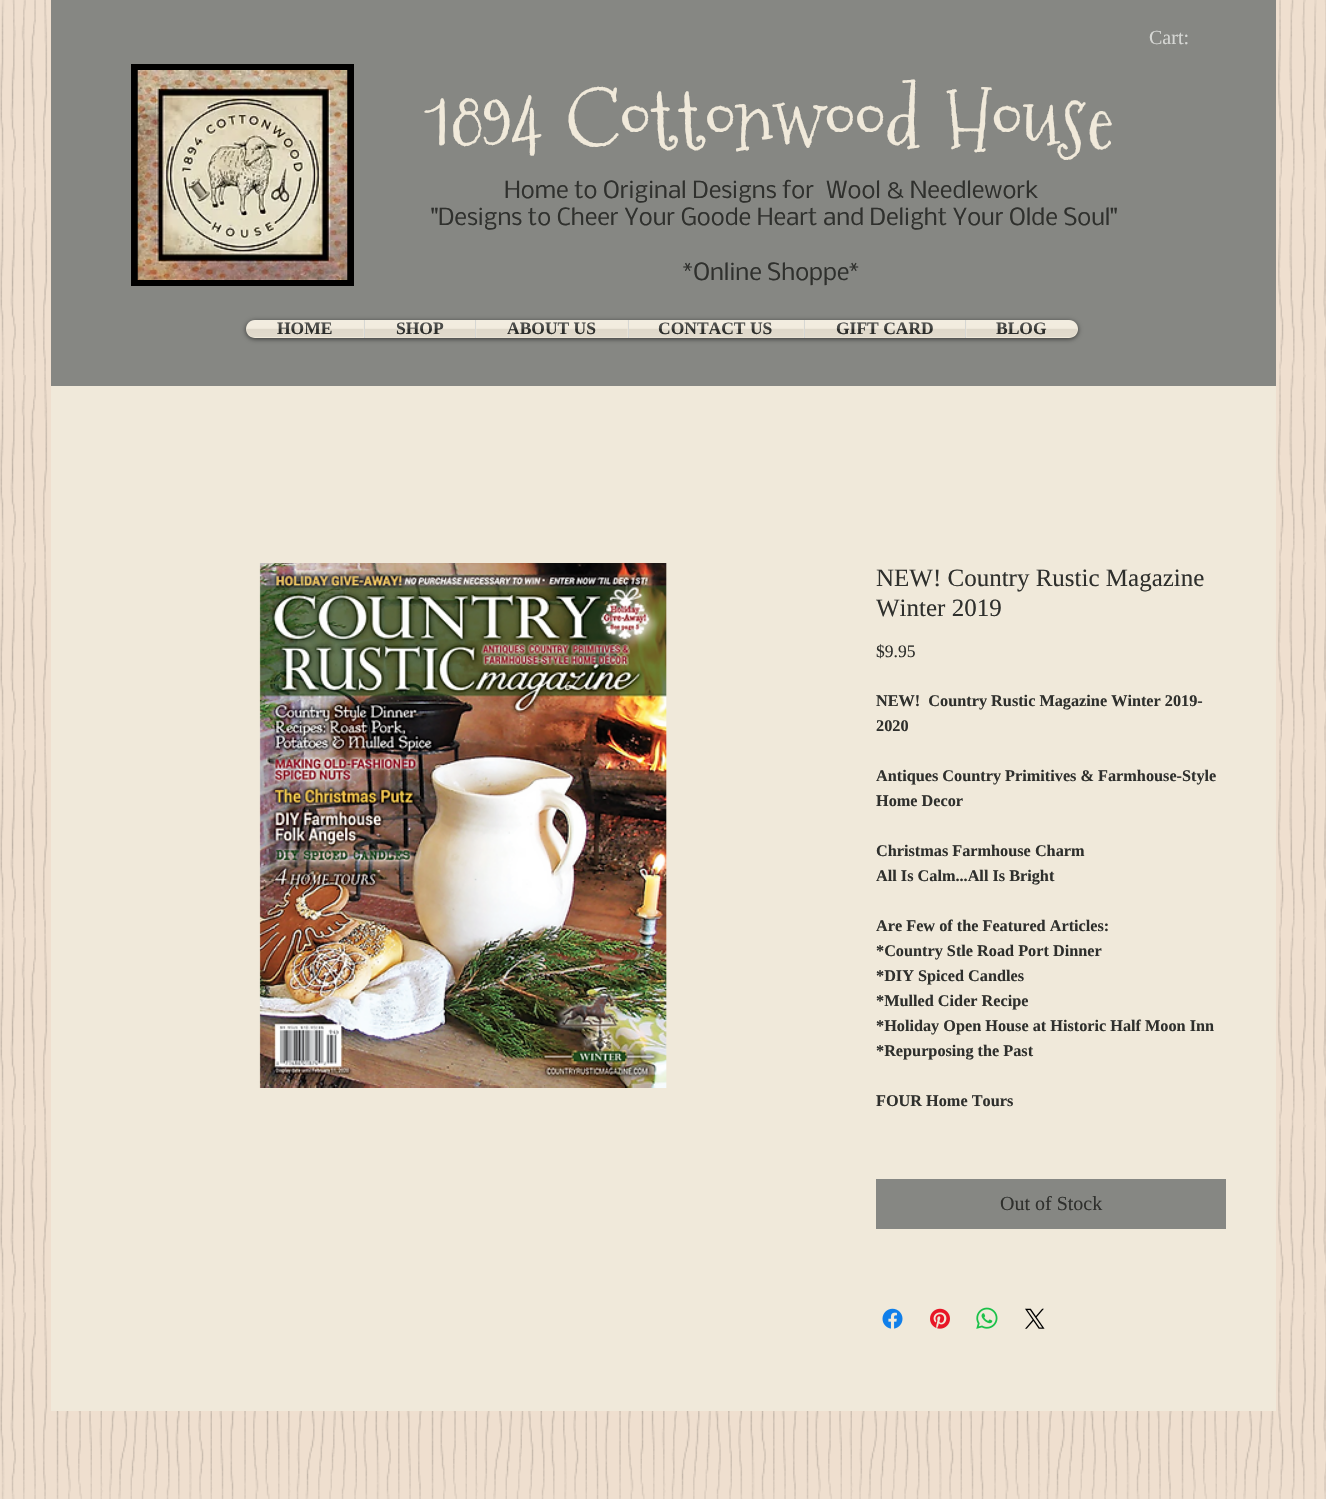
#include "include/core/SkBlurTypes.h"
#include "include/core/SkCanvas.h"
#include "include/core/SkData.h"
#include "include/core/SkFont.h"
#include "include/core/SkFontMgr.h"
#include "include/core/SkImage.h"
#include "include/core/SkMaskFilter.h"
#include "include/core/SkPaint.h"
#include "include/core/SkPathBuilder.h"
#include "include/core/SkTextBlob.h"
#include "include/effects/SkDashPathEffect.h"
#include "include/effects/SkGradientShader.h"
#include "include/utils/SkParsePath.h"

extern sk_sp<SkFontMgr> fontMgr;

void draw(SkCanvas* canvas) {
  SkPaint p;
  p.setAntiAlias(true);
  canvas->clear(SkColorSetRGB(239, 223, 207));
  canvas->drawImageRect(SkImages::DeferredFromEncodedData(SkData::MakeFromFileName("images/1.png")), SkRect::MakeLTRB(0, 0, 1326, 1499), SkSamplingOptions());
  p.setColor(SkColorSetRGB(134, 135, 131));
  canvas->drawRect(SkRect::MakeLTRB(51, 0, 1276, 386), p);
  p.setColor(SK_ColorBLACK);
  canvas->drawRect(SkRect::MakeLTRB(131, 64, 354, 286), p);
  canvas->drawImageRect(SkImages::DeferredFromEncodedData(SkData::MakeFromFileName("images/2.png")), SkRect::MakeLTRB(137, 70, 348, 280), SkSamplingOptions());
  p.setColor(SkColorSetARGB(153, 0, 0, 0));
  p.setMaskFilter(SkMaskFilter::MakeBlur(kNormal_SkBlurStyle, 2.5f));
  canvas->drawRoundRect(SkRect::MakeLTRB(246, 321, 1078, 339), 9, 9, p);
  p.setMaskFilter(nullptr);
  canvas->drawImageRect(SkImages::DeferredFromEncodedData(SkData::MakeFromFileName("images/3.png")), SkRect::MakeLTRB(246, 320, 1077, 336), SkSamplingOptions());
  p.setColor(SkColorSetRGB(240, 233, 218));
  canvas->drawPath(SkPathBuilder().moveTo(255, 320).lineTo(364, 320).lineTo(364, 338).lineTo(255, 338).cubicTo(250, 338, 246, 334, 246, 329).cubicTo(246, 324, 250, 320, 255, 320).close().detach(), p);
  canvas->drawRect(SkRect::MakeLTRB(365, 320, 475, 338), p);
  p.setColor(SkColorSetRGB(214, 215, 212));
  canvas->drawRect(SkRect::MakeLTRB(364, 320, 365, 338), p);
  p.setColor(SkColorSetRGB(240, 233, 218));
  canvas->drawRect(SkRect::MakeLTRB(476, 320, 628, 338), p);
  p.setColor(SkColorSetRGB(214, 215, 212));
  canvas->drawRect(SkRect::MakeLTRB(475, 320, 476, 338), p);
  p.setColor(SkColorSetRGB(240, 233, 218));
  canvas->drawRect(SkRect::MakeLTRB(629, 320, 804, 338), p);
  p.setColor(SkColorSetRGB(214, 215, 212));
  canvas->drawRect(SkRect::MakeLTRB(628, 320, 629, 338), p);
  p.setColor(SkColorSetRGB(240, 233, 218));
  canvas->drawRect(SkRect::MakeLTRB(805, 320, 965, 338), p);
  p.setColor(SkColorSetRGB(214, 215, 212));
  canvas->drawRect(SkRect::MakeLTRB(804, 320, 805, 338), p);
  p.setColor(SkColorSetRGB(240, 233, 218));
  canvas->drawPath(SkPathBuilder().moveTo(965, 320).lineTo(1069, 320).cubicTo(1074, 320, 1078, 324, 1078, 329).cubicTo(1078, 334, 1074, 338, 1069, 338).lineTo(965, 338).close().detach(), p);
  p.setColor(SkColorSetRGB(214, 215, 212));
  canvas->drawRect(SkRect::MakeLTRB(965, 320, 966, 338), p);
  p.setColor(SkColorSetRGB(240, 233, 218));
  canvas->drawRect(SkRect::MakeLTRB(51, 386, 1276, 1411), p);
  canvas->drawImageRect(SkImages::DeferredFromEncodedData(SkData::MakeFromFileName("images/10.png")), SkRect::MakeLTRB(259, 563, 667, 1088), SkSamplingOptions());
  p.setColor(SkColorSetRGB(134, 135, 131));
  canvas->drawRect(SkRect::MakeLTRB(876, 1179, 1226, 1229), p);
  canvas->drawImageRect(SkImages::DeferredFromEncodedData(SkData::MakeFromFileName("images/11.png")), SkRect::MakeLTRB(882, 1308, 903, 1329), SkSamplingOptions());
  canvas->drawImageRect(SkImages::DeferredFromEncodedData(SkData::MakeFromFileName("images/12.png")), SkRect::MakeLTRB(930, 1308, 950, 1329), SkSamplingOptions());
  canvas->drawImageRect(SkImages::DeferredFromEncodedData(SkData::MakeFromFileName("images/13.png")), SkRect::MakeLTRB(976, 1307, 998, 1329), SkSamplingOptions());
  canvas->drawImageRect(SkImages::DeferredFromEncodedData(SkData::MakeFromFileName("images/14.png")), SkRect::MakeLTRB(1025, 1308, 1045, 1329), SkSamplingOptions());
  SkFont font1(fontMgr->matchFamilyStyle("Liberation Serif", SkFontStyle::Normal()), 20);
  font1.setSubpixel(true);
  p.setColor(SkColorSetRGB(214, 215, 212));
  canvas->drawString("Cart:", 1149, 44, font1, p);
  SkFont font2(fontMgr->matchFamilyStyle("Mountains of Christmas", SkFontStyle::Normal()), 82.5f);
  font2.setSubpixel(true);
  p.setColor(SkColorSetRGB(240, 233, 218));
  canvas->drawString("1894 Cottonwood House", 427, 149, font2, p);
  SkFont font3(fontMgr->matchFamilyStyle("Nobile", SkFontStyle::Normal()), 22.5f);
  font3.setSubpixel(true);
  p.setColor(SkColorSetRGB(47, 48, 45));
  canvas->drawString("Home to Original Designs for", 504, 198, font3, p);
  canvas->drawString("Wool & Needlework", 826, 198, font3, p);
  canvas->drawString("\"Designs to Cheer Your Goode Heart and Delight Your Olde Soul\"", 431, 225, font3, p);
  canvas->drawString("*Online Shoppe*", 683, 280, font3, p);
  SkFont font4(fontMgr->matchFamilyStyle("Liberation Serif", SkFontStyle::Bold()), 17.5f);
  font4.setSubpixel(true);
  canvas->drawString("HOME", 277, 334, font4, p);
  canvas->drawImageRect(SkImages::DeferredFromEncodedData(SkData::MakeFromFileName("images/4.png")), SkRect::MakeLTRB(246, 320, 364, 337), SkSamplingOptions());
  canvas->drawString("SHOP", 396, 334, font4, p);
  canvas->drawImageRect(SkImages::DeferredFromEncodedData(SkData::MakeFromFileName("images/5.png")), SkRect::MakeLTRB(365, 320, 475, 338), SkSamplingOptions());
  canvas->drawString("ABOUT US", 507, 334, font4, p);
  canvas->drawImageRect(SkImages::DeferredFromEncodedData(SkData::MakeFromFileName("images/6.png")), SkRect::MakeLTRB(476, 320, 628, 338), SkSamplingOptions());
  canvas->drawString("CONTACT US", 658, 334, font4, p);
  canvas->drawImageRect(SkImages::DeferredFromEncodedData(SkData::MakeFromFileName("images/7.png")), SkRect::MakeLTRB(629, 320, 804, 338), SkSamplingOptions());
  canvas->drawString("GIFT CARD", 836, 334, font4, p);
  canvas->drawImageRect(SkImages::DeferredFromEncodedData(SkData::MakeFromFileName("images/8.png")), SkRect::MakeLTRB(805, 320, 965, 338), SkSamplingOptions());
  canvas->drawString("BLOG", 996, 334, font4, p);
  canvas->drawImageRect(SkImages::DeferredFromEncodedData(SkData::MakeFromFileName("images/9.png")), SkRect::MakeLTRB(966, 320, 1077, 337), SkSamplingOptions());
  SkFont font5(fontMgr->matchFamilyStyle("Liberation Serif", SkFontStyle::Normal()), 25);
  font5.setSubpixel(true);
  canvas->drawString("NEW! Country Rustic Magazine", 876, 586, font5, p);
  canvas->drawString("Winter 2019", 876, 616, font5, p);
  SkFont font6(fontMgr->matchFamilyStyle("Liberation Serif", SkFontStyle::Normal()), 17.5f);
  font6.setSubpixel(true);
  canvas->drawString("$9.95", 876, 657, font6, p);
  SkFont font7(fontMgr->matchFamilyStyle("Liberation Serif", SkFontStyle::Bold()), 16.25f);
  font7.setSubpixel(true);
  canvas->drawString("NEW!  Country Rustic Magazine Winter 2019-", 876, 706, font7, p);
  canvas->drawString("2020", 876, 731, font7, p);
  canvas->drawString("Antiques Country Primitives & Farmhouse-Style", 876, 781, font7, p);
  canvas->drawString("Home Decor", 876, 806, font7, p);
  canvas->drawString("Christmas Farmhouse Charm", 876, 856, font7, p);
  canvas->drawString("All Is Calm...All Is Bright", 876, 881, font7, p);
  canvas->drawString("Are Few of the Featured Articles:", 876, 931, font7, p);
  canvas->drawString("*Country Stle Road Port Dinner", 876, 956, font7, p);
  canvas->drawString("*DIY Spiced Candles", 876, 981, font7, p);
  canvas->drawString("*Mulled Cider Recipe", 876, 1006, font7, p);
  canvas->drawString("*Holiday Open House at Historic Half Moon Inn", 876, 1031, font7, p);
  canvas->drawString("*Repurposing the Past", 876, 1056, font7, p);
  canvas->drawString("FOUR Home Tours", 876, 1106, font7, p);
  canvas->drawString("Out of Stock", 1000, 1210, font1, p);
}
